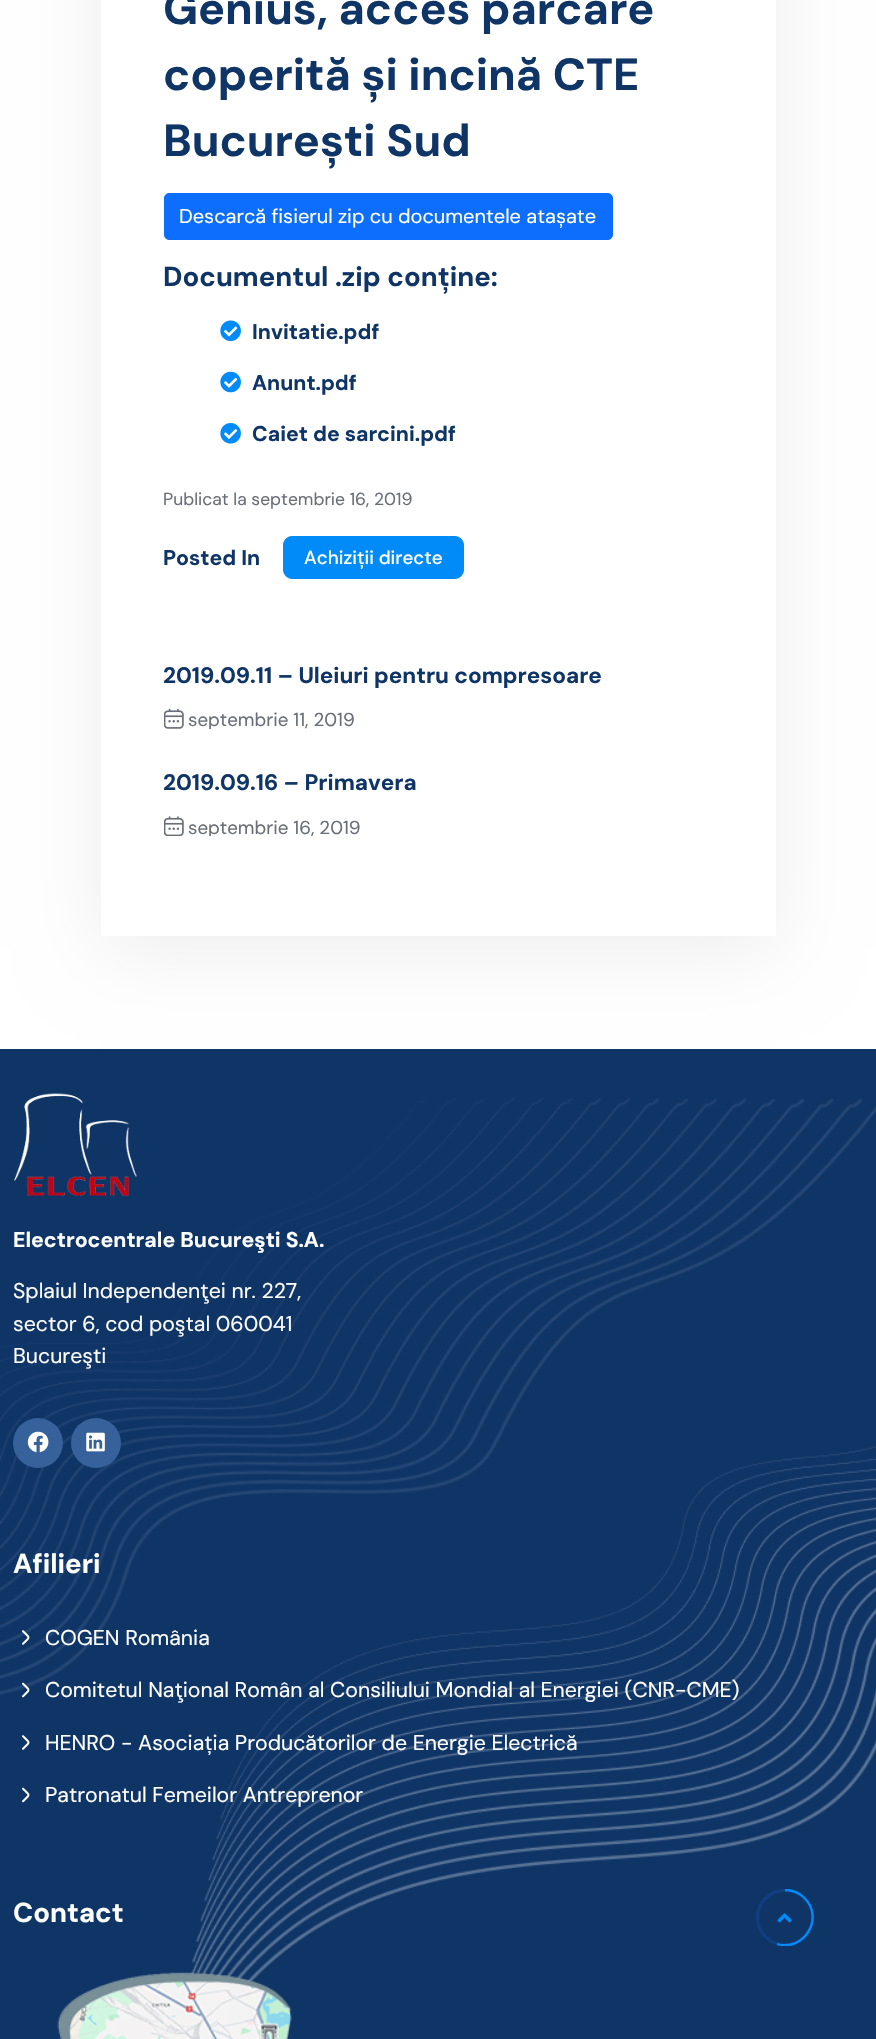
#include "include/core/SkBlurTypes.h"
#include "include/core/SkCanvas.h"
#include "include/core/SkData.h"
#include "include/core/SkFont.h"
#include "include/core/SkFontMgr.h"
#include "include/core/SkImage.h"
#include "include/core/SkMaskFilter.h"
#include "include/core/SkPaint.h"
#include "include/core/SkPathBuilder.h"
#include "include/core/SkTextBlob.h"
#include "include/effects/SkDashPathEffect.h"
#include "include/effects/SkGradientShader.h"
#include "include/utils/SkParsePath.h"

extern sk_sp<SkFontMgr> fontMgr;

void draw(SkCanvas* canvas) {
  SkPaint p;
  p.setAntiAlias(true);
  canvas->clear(SK_ColorWHITE);
  p.setColor(SkColorSetRGB(15, 53, 103));
  canvas->drawRect(SkRect::MakeLTRB(0, 1049, 876, 2039), p);
  p.setColor(SkColorSetARGB(18, 0, 0, 0));
  p.setMaskFilter(SkMaskFilter::MakeBlur(kNormal_SkBlurStyle, 37.5f));
  canvas->drawRect(SkRect::MakeLTRB(101, -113, 776, 949), p);
  p.setMaskFilter(nullptr);
  p.setColor(SK_ColorWHITE);
  canvas->drawRect(SkRect::MakeLTRB(101, 0, 776, 936), p);
  p.setColor(SkColorSetRGB(13, 110, 253));
  canvas->drawRoundRect(SkRect::MakeLTRB(164.5f, 193.5f, 612.5f, 239.5f), 4.5f, 4.5f, p);
  p.setStyle(SkPaint::kStroke_Style);
  p.setStrokeWidth(1);
  canvas->drawRoundRect(SkRect::MakeLTRB(164.5f, 193.5f, 612.5f, 239.5f), 4.5f, 4.5f, p);
  canvas->drawImageRect(SkImages::DeferredFromEncodedData(SkData::MakeFromFileName("images/1.png")), SkRect::MakeLTRB(220, 320, 241, 342), SkSamplingOptions());
  canvas->drawImageRect(SkImages::DeferredFromEncodedData(SkData::MakeFromFileName("images/2.png")), SkRect::MakeLTRB(220, 371, 241, 393), SkSamplingOptions());
  canvas->drawImageRect(SkImages::DeferredFromEncodedData(SkData::MakeFromFileName("images/3.png")), SkRect::MakeLTRB(220, 423, 241, 444), SkSamplingOptions());
  p.setStyle(SkPaint::kFill_Style);
  p.setColor(SkColorSetRGB(0, 139, 249));
  canvas->drawRoundRect(SkRect::MakeLTRB(283.5f, 536.5f, 463.5f, 578.5f), 8.5f, 8.5f, p);
  p.setStyle(SkPaint::kStroke_Style);
  canvas->drawRoundRect(SkRect::MakeLTRB(283.5f, 536.5f, 463.5f, 578.5f), 8.5f, 8.5f, p);
  canvas->drawImageRect(SkImages::DeferredFromEncodedData(SkData::MakeFromFileName("images/4.png")), SkRect::MakeLTRB(164, 708, 184, 729), SkSamplingOptions());
  canvas->drawImageRect(SkImages::DeferredFromEncodedData(SkData::MakeFromFileName("images/5.png")), SkRect::MakeLTRB(164, 816, 184, 836), SkSamplingOptions());
  canvas->drawImageRect(SkImages::DeferredFromEncodedData(SkData::MakeFromFileName("images/6.png")), SkRect::MakeLTRB(0, 1098, 876, 1695), SkSamplingOptions());
  canvas->drawImageRect(SkImages::DeferredFromEncodedData(SkData::MakeFromFileName("images/7.png")), SkRect::MakeLTRB(14, 1093, 137, 1196), SkSamplingOptions());
  p.setStyle(SkPaint::kFill_Style);
  p.setColor(SkColorSetRGB(54, 97, 154));
  canvas->drawCircle(38, 1443, 25, p);
  canvas->drawImageRect(SkImages::DeferredFromEncodedData(SkData::MakeFromFileName("images/8.png")), SkRect::MakeLTRB(27, 1431, 49, 1453), SkSamplingOptions());
  canvas->drawCircle(96, 1443, 25, p);
  canvas->drawImageRect(SkImages::DeferredFromEncodedData(SkData::MakeFromFileName("images/9.png")), SkRect::MakeLTRB(86, 1432, 105, 1452), SkSamplingOptions());
  canvas->drawImageRect(SkImages::DeferredFromEncodedData(SkData::MakeFromFileName("images/10.png")), SkRect::MakeLTRB(22, 1630, 30, 1645), SkSamplingOptions());
  canvas->drawImageRect(SkImages::DeferredFromEncodedData(SkData::MakeFromFileName("images/11.png")), SkRect::MakeLTRB(22, 1682, 30, 1698), SkSamplingOptions());
  canvas->drawImageRect(SkImages::DeferredFromEncodedData(SkData::MakeFromFileName("images/12.png")), SkRect::MakeLTRB(22, 1735, 30, 1750), SkSamplingOptions());
  canvas->drawImageRect(SkImages::DeferredFromEncodedData(SkData::MakeFromFileName("images/13.png")), SkRect::MakeLTRB(22, 1787, 30, 1803), SkSamplingOptions());
  canvas->drawImageRect(SkImages::DeferredFromEncodedData(SkData::MakeFromFileName("images/15.png")), SkRect::MakeLTRB(188, 1446, 876, 1983), SkSamplingOptions());
  canvas->drawImageRect(SkImages::DeferredFromEncodedData(SkData::MakeFromFileName("images/14.png")), SkRect::MakeLTRB(57, 1972, 292, 2039), SkSamplingOptions());
  p.setStyle(SkPaint::kStroke_Style);
  p.setStrokeWidth(3);
  p.setColor(SkColorSetRGB(16, 61, 131));
  canvas->drawRoundRect(SkRect::MakeLTRB(757.5f, 1890.5f, 812.5f, 1944.5f), 27, 27, p);
  canvas->save();
  canvas->clipRect(SkRect::MakeLTRB(756, 1889, 814, 1946));
  p.setStrokeWidth(2.3f);
  p.setColor(SkColorSetRGB(0, 139, 249));
  canvas->drawPath(SkPathBuilder().moveTo(785, 1890).cubicTo(792.5f, 1890, 799.5f, 1893, 804.5f, 1898).cubicTo(825, 1918.5f, 803.5f, 1952, 777, 1944).detach(), p);
  canvas->restore();
  canvas->drawImageRect(SkImages::DeferredFromEncodedData(SkData::MakeFromFileName("images/16.png")), SkRect::MakeLTRB(777, 1913, 792, 1923), SkSamplingOptions());
  SkFont font1(fontMgr->matchFamilyStyle("DM Sans", SkFontStyle::Bold()), 45);
  font1.setSubpixel(true);
  p.setStyle(SkPaint::kFill_Style);
  p.setColor(SkColorSetRGB(15, 53, 103));
  canvas->drawString("Genius, acces parcare", 163, 24, font1, p);
  canvas->drawString("coperită și incină CTE", 163, 90, font1, p);
  canvas->drawString("București Sud", 163, 156, font1, p);
  SkFont font2(fontMgr->matchFamilyStyle("DM Sans", SkFontStyle::Normal()), 20);
  font2.setSubpixel(true);
  p.setColor(SK_ColorWHITE);
  canvas->drawString("Descarcă fisierul zip cu documentele atașate", 179, 223, font2, p);
  SkFont font3(fontMgr->matchFamilyStyle("DM Sans", SkFontStyle::Bold()), 27.5f);
  font3.setSubpixel(true);
  p.setColor(SkColorSetRGB(15, 53, 103));
  canvas->drawString("Documentul .zip conține:", 163, 286, font3, p);
  SkFont font4(fontMgr->matchFamilyStyle("DM Sans", SkFontStyle::Bold()), 21.25f);
  font4.setSubpixel(true);
  canvas->drawString("Invitatie.pdf", 252, 339, font4, p);
  canvas->drawString("Anunt.pdf", 252, 390, font4, p);
  canvas->drawString("Caiet de sarcini.pdf", 252, 441, font4, p);
  SkFont font5(fontMgr->matchFamilyStyle("DM Sans", SkFontStyle::Normal()), 17.5f);
  font5.setSubpixel(true);
  p.setColor(SkColorSetRGB(105, 110, 119));
  canvas->drawString("Publicat la septembrie 16, 2019", 163, 505, font5, p);
  p.setColor(SkColorSetRGB(15, 53, 103));
  canvas->drawString("Posted In", 163, 565, font4, p);
  SkFont font6(fontMgr->matchFamilyStyle("DM Sans", SkFontStyle(500, SkFontStyle::kNormal_Width, SkFontStyle::kUpright_Slant)), 18.75f);
  font6.setSubpixel(true);
  p.setColor(SK_ColorWHITE);
  canvas->drawString("Achiziții directe", 304, 564, font6, p);
  SkFont font7(fontMgr->matchFamilyStyle("DM Sans", SkFontStyle::Bold()), 22.5f);
  font7.setSubpixel(true);
  p.setColor(SkColorSetRGB(15, 53, 103));
  canvas->drawString("2019.09.11 – Uleiuri pentru compresoare", 163, 683, font7, p);
  canvas->save();
  canvas->clipRect(SkRect::MakeLTRB(164, 701, 603, 729));
  SkFont font8(fontMgr->matchFamilyStyle("DM Sans", SkFontStyle::Normal()), 18.75f);
  font8.setSubpixel(true);
  p.setColor(SkColorSetRGB(105, 110, 119));
  canvas->drawString("septembrie 11, 2019", 188, 726, font8, p);
  canvas->restore();
  p.setColor(SkColorSetRGB(15, 53, 103));
  canvas->drawString("2019.09.16 – Primavera", 163, 790, font7, p);
  canvas->save();
  canvas->clipRect(SkRect::MakeLTRB(164, 809, 445, 836));
  p.setColor(SkColorSetRGB(105, 110, 119));
  canvas->drawString("septembrie 16, 2019", 188, 834, font8, p);
  canvas->restore();
  p.setColor(SK_ColorWHITE);
  canvas->drawString("Electrocentrale Bucureşti S.A.", 13, 1247, font4, p);
  SkFont font9(fontMgr->matchFamilyStyle("DM Sans", SkFontStyle::Normal()), 21.25f);
  font9.setSubpixel(true);
  canvas->drawString("Splaiul Independenţei nr. 227,", 13, 1298, font9, p);
  canvas->drawString("sector 6, cod poştal 060041", 13, 1331, font9, p);
  canvas->drawString("Bucureşti", 13, 1363, font9, p);
  canvas->drawString("Afilieri", 13, 1573, font3, p);
  canvas->drawString("COGEN România", 45, 1645, font9, p);
  canvas->drawString("Comitetul Naţional Român al Consiliului Mondial al Energiei (CNR-CME)", 45, 1697, font9, p);
  canvas->drawString("HENRO - Asociația Producătorilor de Energie Electrică", 45, 1750, font9, p);
  canvas->drawString("Patronatul Femeilor Antreprenor", 45, 1802, font9, p);
  canvas->drawString("Contact", 13, 1922, font3, p);
}
